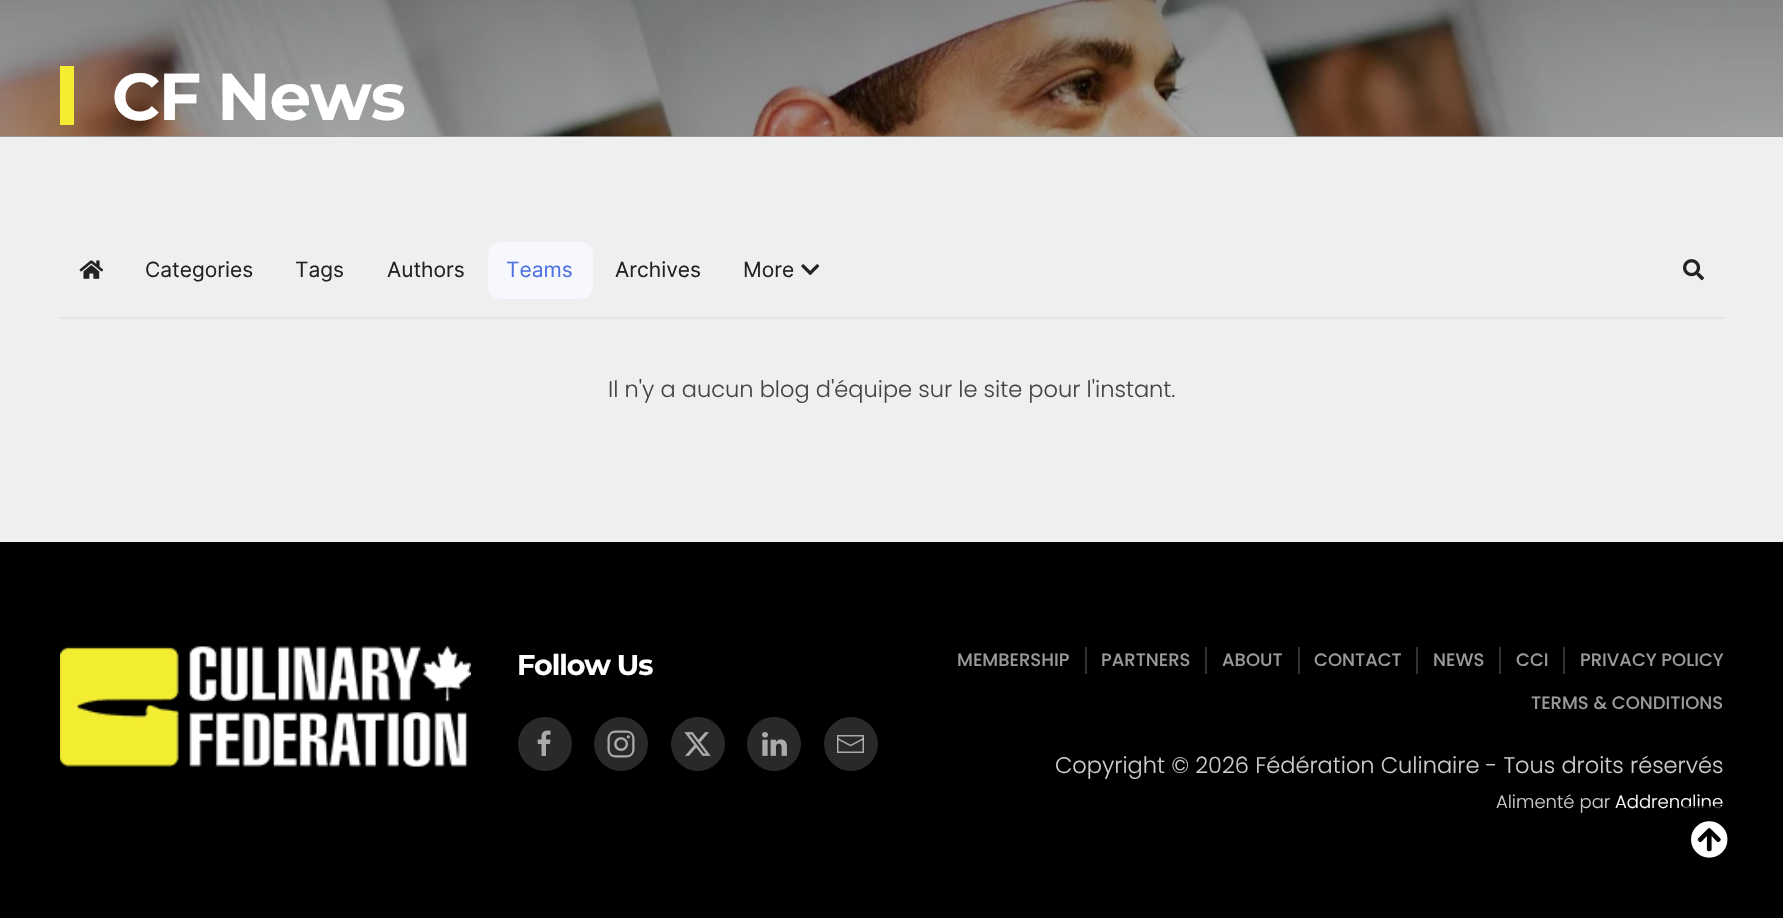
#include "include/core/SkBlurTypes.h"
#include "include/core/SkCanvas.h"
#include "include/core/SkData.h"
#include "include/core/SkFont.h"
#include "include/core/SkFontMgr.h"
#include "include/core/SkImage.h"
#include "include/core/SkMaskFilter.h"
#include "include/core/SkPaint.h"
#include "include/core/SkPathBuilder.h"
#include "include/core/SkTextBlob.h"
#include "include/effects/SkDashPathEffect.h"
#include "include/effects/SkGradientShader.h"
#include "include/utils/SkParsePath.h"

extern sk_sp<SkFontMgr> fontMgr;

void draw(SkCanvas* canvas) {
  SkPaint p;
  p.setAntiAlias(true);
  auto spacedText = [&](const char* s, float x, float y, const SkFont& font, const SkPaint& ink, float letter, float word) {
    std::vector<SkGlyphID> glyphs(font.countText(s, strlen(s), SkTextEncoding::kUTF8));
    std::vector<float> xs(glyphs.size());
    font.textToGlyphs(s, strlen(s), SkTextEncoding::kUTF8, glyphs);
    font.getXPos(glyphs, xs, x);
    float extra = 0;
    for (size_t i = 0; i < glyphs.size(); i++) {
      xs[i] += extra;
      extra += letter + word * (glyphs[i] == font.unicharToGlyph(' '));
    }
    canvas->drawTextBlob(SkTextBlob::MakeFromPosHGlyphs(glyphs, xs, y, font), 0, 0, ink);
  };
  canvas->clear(SkColorSetRGB(239, 239, 239));
  p.setColor(SkColorSetRGB(158, 158, 158));
  canvas->drawRect(SkRect::MakeLTRB(0, 136, 1783, 137), p);
  canvas->drawImageRect(SkImages::DeferredFromEncodedData(SkData::MakeFromFileName("images/1.png")), SkRect::MakeLTRB(0, 0, 1783, 137), SkSamplingOptions());
  p.setColor(SkColorSetRGB(244, 237, 50));
  canvas->drawRect(SkRect::MakeLTRB(60, 66, 74, 125), p);
  canvas->drawImageRect(SkImages::DeferredFromEncodedData(SkData::MakeFromFileName("images/2.png")), SkRect::MakeLTRB(79, 260, 104, 279), SkSamplingOptions());
  p.setColor(SkColorSetRGB(246, 248, 254));
  canvas->drawRoundRect(SkRect::MakeLTRB(488, 242, 593, 299), 12, 12, p);
  canvas->drawImageRect(SkImages::DeferredFromEncodedData(SkData::MakeFromFileName("images/3.png")), SkRect::MakeLTRB(801, 264, 820, 276), SkSamplingOptions());
  canvas->drawImageRect(SkImages::DeferredFromEncodedData(SkData::MakeFromFileName("images/4.png")), SkRect::MakeLTRB(1683, 259, 1704, 281), SkSamplingOptions());
  p.setColor(SkColorSetRGB(229, 229, 229));
  canvas->drawRect(SkRect::MakeLTRB(60, 317, 1724, 319), p);
  p.setColor(SK_ColorBLACK);
  canvas->drawRect(SkRect::MakeLTRB(0, 542, 1783, 918), p);
  canvas->drawImageRect(SkImages::DeferredFromEncodedData(SkData::MakeFromFileName("images/5.png")), SkRect::MakeLTRB(60, 646, 471, 767), SkSamplingOptions());
  p.setColor(SkColorSetRGB(41, 41, 41));
  canvas->drawCircle(545, 744, 27, p);
  canvas->drawImageRect(SkImages::DeferredFromEncodedData(SkData::MakeFromFileName("images/6.png")), SkRect::MakeLTRB(537, 730, 551, 756), SkSamplingOptions());
  canvas->drawCircle(621, 744, 27, p);
  canvas->drawImageRect(SkImages::DeferredFromEncodedData(SkData::MakeFromFileName("images/7.png")), SkRect::MakeLTRB(607, 730, 635, 758), SkSamplingOptions());
  canvas->drawCircle(698, 744, 27, p);
  canvas->drawImageRect(SkImages::DeferredFromEncodedData(SkData::MakeFromFileName("images/8.png")), SkRect::MakeLTRB(684, 732, 711, 756), SkSamplingOptions());
  canvas->drawCircle(774, 744, 27, p);
  canvas->drawImageRect(SkImages::DeferredFromEncodedData(SkData::MakeFromFileName("images/9.png")), SkRect::MakeLTRB(762, 732, 787, 756), SkSamplingOptions());
  canvas->drawCircle(851, 744, 27, p);
  canvas->drawImageRect(SkImages::DeferredFromEncodedData(SkData::MakeFromFileName("images/10.png")), SkRect::MakeLTRB(837, 735, 864, 753), SkSamplingOptions());
  p.setColor(SkColorSetRGB(51, 51, 51));
  canvas->drawRect(SkRect::MakeLTRB(1085, 647, 1087, 674), p);
  canvas->drawRect(SkRect::MakeLTRB(1205, 647, 1207, 674), p);
  canvas->drawRect(SkRect::MakeLTRB(1298, 647, 1300, 674), p);
  canvas->drawRect(SkRect::MakeLTRB(1416, 647, 1418, 674), p);
  canvas->drawRect(SkRect::MakeLTRB(1499, 647, 1501, 674), p);
  canvas->drawRect(SkRect::MakeLTRB(1563, 647, 1565, 674), p);
  SkFont font1(fontMgr->matchFamilyStyle("Montserrat", SkFontStyle(100, SkFontStyle::kNormal_Width, SkFontStyle::kUpright_Slant)), 66);
  font1.setSubpixel(true);
  p.setColor(SK_ColorWHITE);
  spacedText("CF News", 112, 120, font1, p, -1.1f, 0);
  SkFont font2(fontMgr->matchFamilyStyle("Inter", SkFontStyle::Normal()), 21);
  font2.setSubpixel(true);
  p.setColor(SkColorSetRGB(34, 34, 34));
  canvas->drawString("Categories", 145, 277, font2, p);
  canvas->drawString("Tags", 295, 277, font2, p);
  canvas->drawString("Authors", 387, 277, font2, p);
  p.setColor(SkColorSetRGB(78, 114, 226));
  canvas->drawString("Teams", 506, 277, font2, p);
  p.setColor(SkColorSetRGB(34, 34, 34));
  canvas->drawString("Archives", 615, 277, font2, p);
  canvas->drawString("More", 743, 277, font2, p);
  SkFont font3(fontMgr->matchFamilyStyle("Poppins", SkFontStyle(300, SkFontStyle::kNormal_Width, SkFontStyle::kUpright_Slant)), 22.5f);
  font3.setSubpixel(true);
  p.setColor(SkColorSetRGB(68, 68, 68));
  canvas->drawString("Il n'y a aucun blog d'équipe sur le site pour l'instant.", 608, 397, font3, p);
  SkFont font4(fontMgr->matchFamilyStyle("Montserrat", SkFontStyle(100, SkFontStyle::kNormal_Width, SkFontStyle::kUpright_Slant)), 28.5f);
  font4.setSubpixel(true);
  p.setColor(SK_ColorWHITE);
  spacedText("Follow Us", 517, 675, font4, p, -1.1f, 0);
  SkFont font5(fontMgr->matchFamilyStyle("Poppins", SkFontStyle(500, SkFontStyle::kNormal_Width, SkFontStyle::kUpright_Slant)), 18);
  font5.setSubpixel(true);
  p.setColor(SkColorSetRGB(153, 153, 153));
  canvas->drawString("MEMBERSHIP", 957, 666, font5, p);
  canvas->drawString("PARTNERS", 1101, 666, font5, p);
  canvas->drawString("ABOUT", 1222, 666, font5, p);
  canvas->drawString("CONTACT", 1314, 666, font5, p);
  canvas->drawString("NEWS", 1433, 666, font5, p);
  canvas->drawString("CCI", 1516, 666, font5, p);
  canvas->drawString("PRIVACY POLICY", 1580, 666, font5, p);
  canvas->drawString("TERMS & CONDITIONS", 1531, 709, font5, p);
  p.setColor(SkColorSetRGB(204, 204, 204));
  canvas->drawString("Copyright © 2026 Fédération Culinaire - Tous droits réservés", 1055, 773, font3, p);
  SkFont font6(fontMgr->matchFamilyStyle("Poppins", SkFontStyle(300, SkFontStyle::kNormal_Width, SkFontStyle::kUpright_Slant)), 18);
  font6.setSubpixel(true);
  canvas->drawString("Alimenté par", 1496, 808, font6, p);
  p.setColor(SK_ColorWHITE);
  canvas->drawString("Addrenaline", 1615, 808, font6, p);
  p.setColor(SkColorSetARGB(179, 0, 0, 0));
  canvas->drawRoundRect(SkRect::MakeLTRB(1671, 806, 1746, 881), 15, 15, p);
  canvas->drawImageRect(SkImages::DeferredFromEncodedData(SkData::MakeFromFileName("images/11.png")), SkRect::MakeLTRB(1691, 821, 1728, 858), SkSamplingOptions());
}
